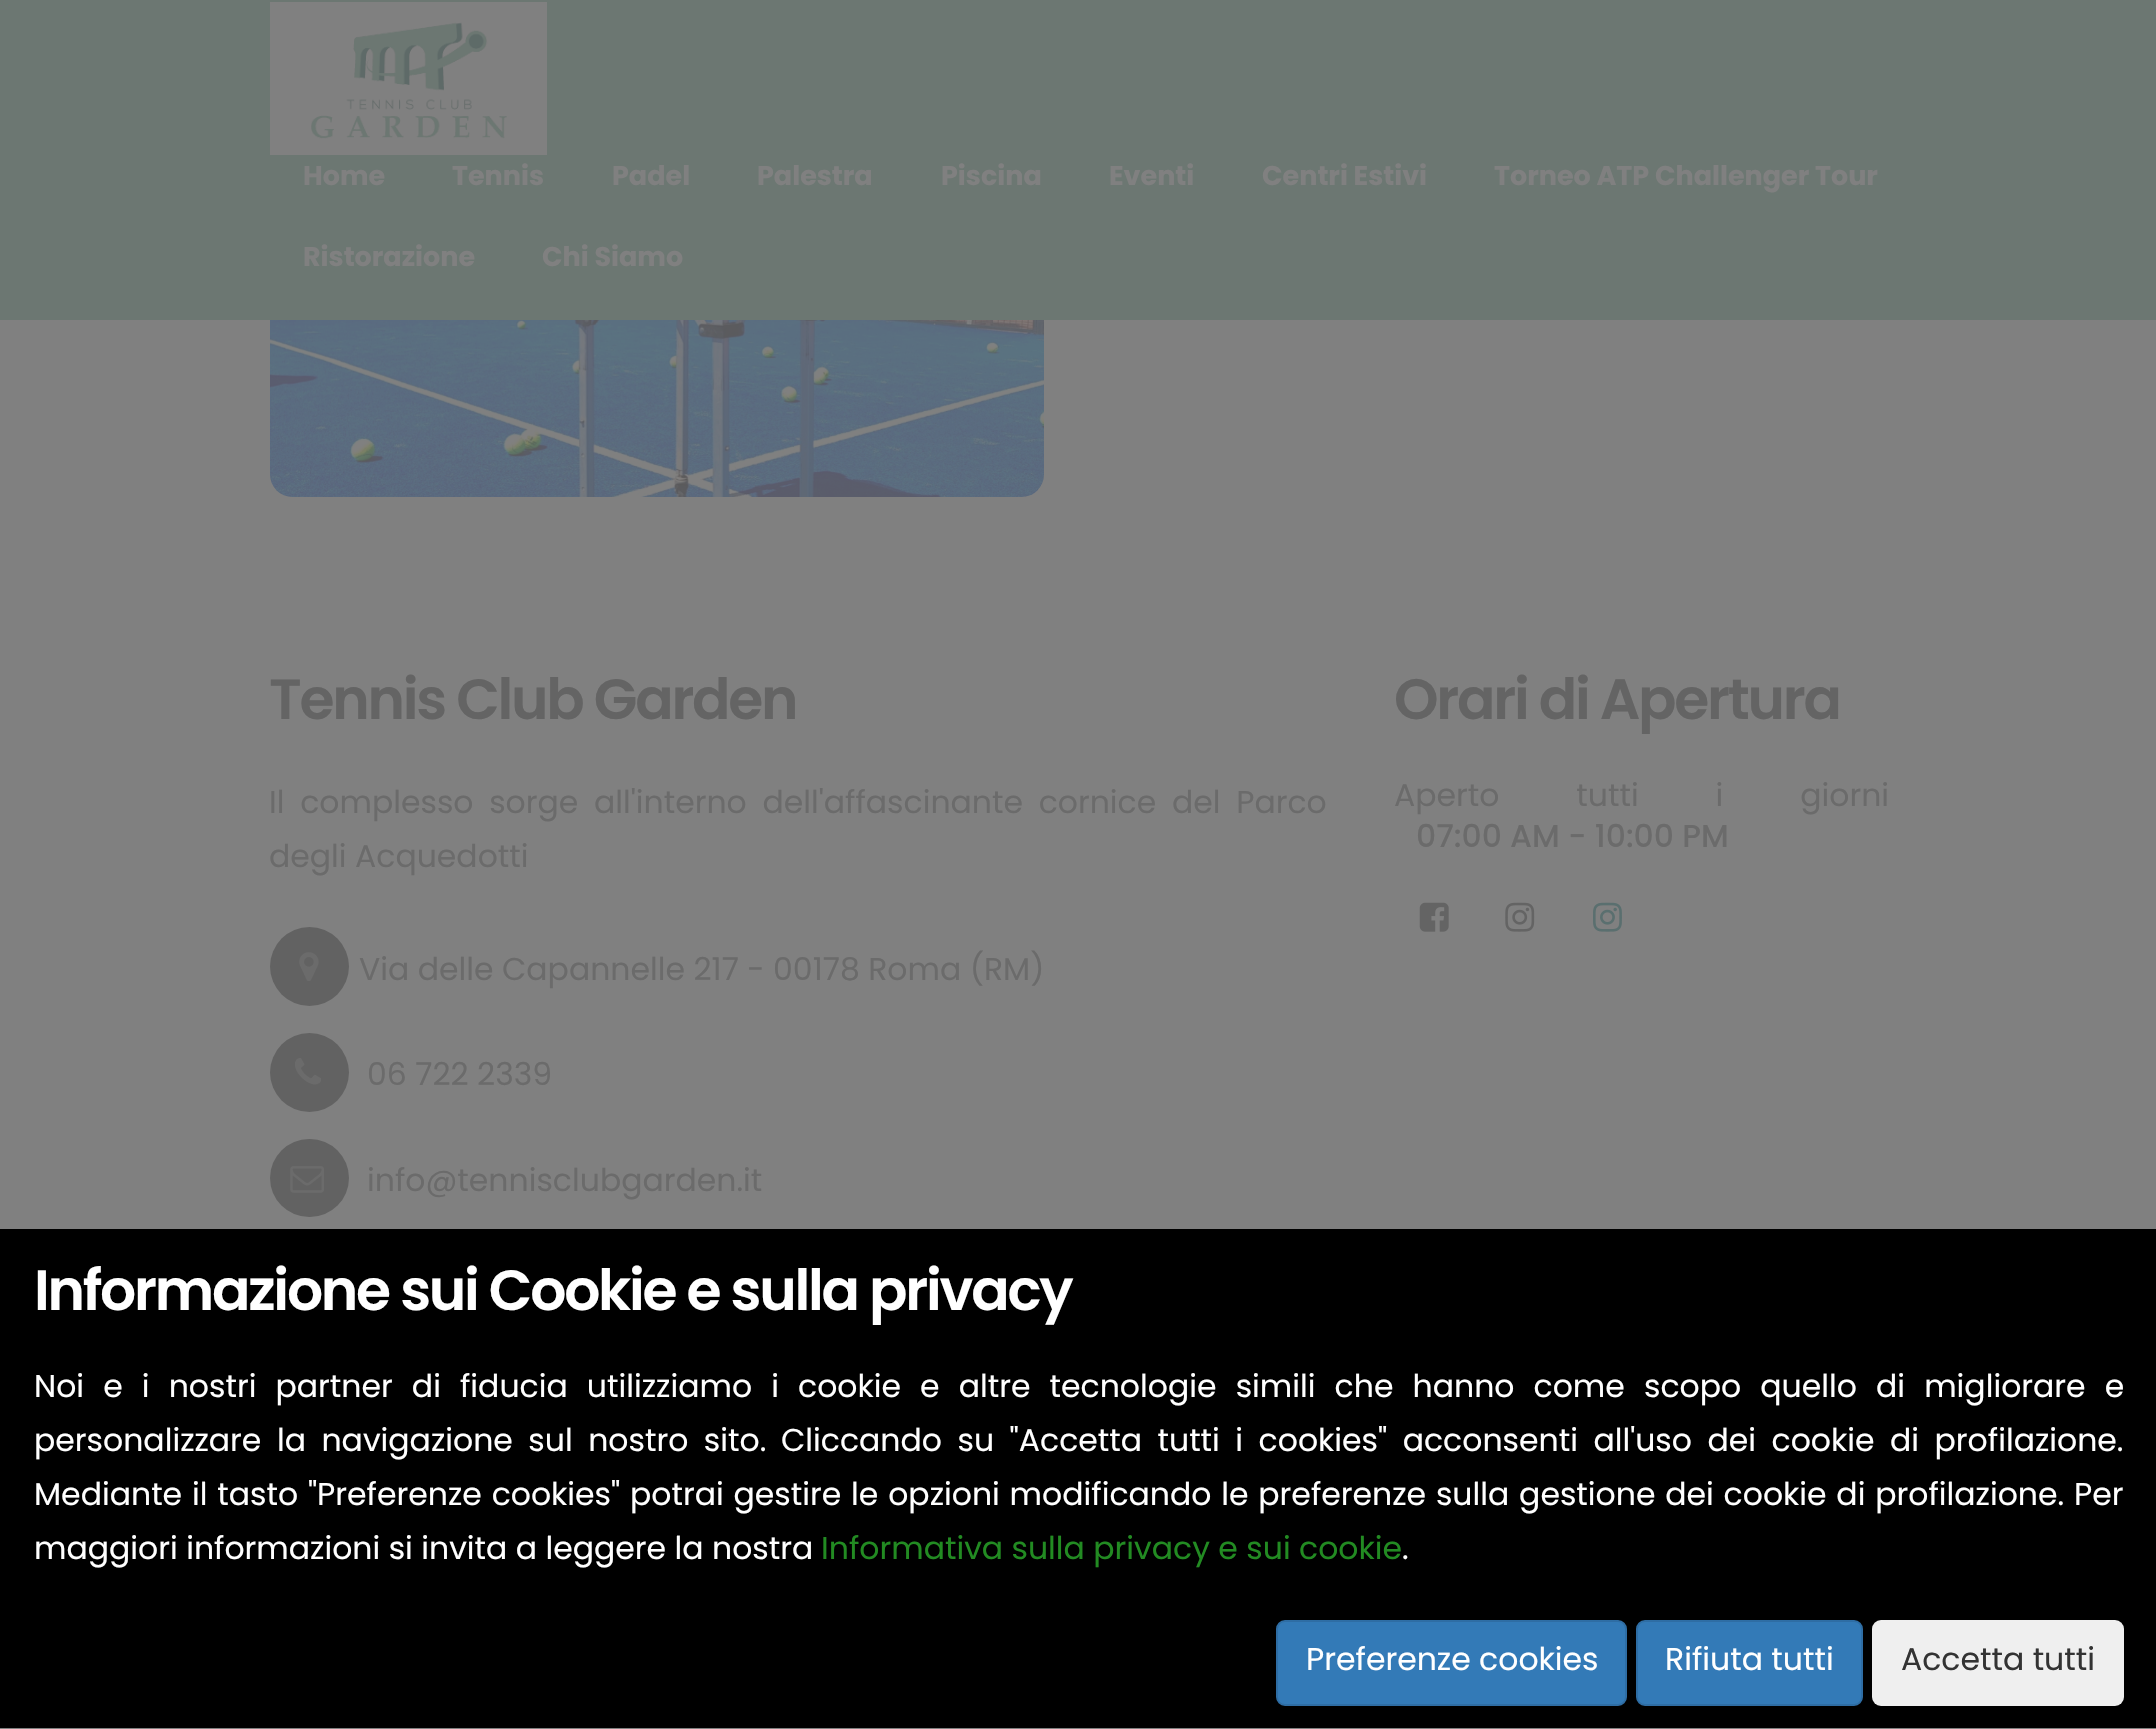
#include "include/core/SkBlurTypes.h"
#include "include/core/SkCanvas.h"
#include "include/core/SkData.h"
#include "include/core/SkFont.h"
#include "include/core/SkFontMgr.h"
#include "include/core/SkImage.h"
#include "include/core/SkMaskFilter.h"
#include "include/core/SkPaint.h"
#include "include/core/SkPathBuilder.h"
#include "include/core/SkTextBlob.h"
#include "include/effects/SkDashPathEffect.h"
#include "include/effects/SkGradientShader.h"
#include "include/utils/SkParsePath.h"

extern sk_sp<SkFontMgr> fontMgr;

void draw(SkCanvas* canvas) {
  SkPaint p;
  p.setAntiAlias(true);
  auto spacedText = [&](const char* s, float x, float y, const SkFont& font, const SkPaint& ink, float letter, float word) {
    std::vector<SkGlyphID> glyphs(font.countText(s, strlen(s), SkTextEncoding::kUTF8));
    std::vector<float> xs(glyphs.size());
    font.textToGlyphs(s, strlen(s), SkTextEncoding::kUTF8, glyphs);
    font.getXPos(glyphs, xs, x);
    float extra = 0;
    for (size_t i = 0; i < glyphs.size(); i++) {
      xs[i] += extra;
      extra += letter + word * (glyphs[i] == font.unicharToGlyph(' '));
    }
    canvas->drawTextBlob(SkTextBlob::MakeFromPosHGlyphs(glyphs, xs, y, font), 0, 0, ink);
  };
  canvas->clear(SkColorSetRGB(128, 128, 128));
  p.setColor(SkColorSetRGB(108, 119, 114));
  canvas->drawRect(SkRect::MakeLTRB(0, 0, 2156, 320), p);
  p.setColor(SkColorSetRGB(128, 128, 128));
  canvas->drawRect(SkRect::MakeLTRB(270, 2, 547, 155), p);
  canvas->drawImageRect(SkImages::DeferredFromEncodedData(SkData::MakeFromFileName("images/1.png")), SkRect::MakeLTRB(311, 22, 507, 139), SkSamplingOptions());
  canvas->drawImageRect(SkImages::DeferredFromEncodedData(SkData::MakeFromFileName("images/2.png")), SkRect::MakeLTRB(270, 320, 1044, 497), SkSamplingOptions());
  p.setColor(SkColorSetRGB(98, 98, 98));
  canvas->drawCircle(309.5f, 966.5f, 39.5f, p);
  canvas->drawImageRect(SkImages::DeferredFromEncodedData(SkData::MakeFromFileName("images/3.png")), SkRect::MakeLTRB(299, 952, 319, 981), SkSamplingOptions());
  canvas->drawCircle(309.5f, 1072.5f, 39.5f, p);
  canvas->drawImageRect(SkImages::DeferredFromEncodedData(SkData::MakeFromFileName("images/4.png")), SkRect::MakeLTRB(295, 1058, 321, 1085), SkSamplingOptions());
  canvas->drawRoundRect(SkRect::MakeLTRB(270, 1139, 349, 1217), 39, 39, p);
  canvas->drawImageRect(SkImages::DeferredFromEncodedData(SkData::MakeFromFileName("images/5.png")), SkRect::MakeLTRB(290, 1166, 324, 1193), SkSamplingOptions());
  canvas->drawImageRect(SkImages::DeferredFromEncodedData(SkData::MakeFromFileName("images/6.png")), SkRect::MakeLTRB(1419, 902, 1449, 932), SkSamplingOptions());
  canvas->drawImageRect(SkImages::DeferredFromEncodedData(SkData::MakeFromFileName("images/7.png")), SkRect::MakeLTRB(1505, 902, 1535, 932), SkSamplingOptions());
  canvas->drawImageRect(SkImages::DeferredFromEncodedData(SkData::MakeFromFileName("images/8.png")), SkRect::MakeLTRB(1593, 902, 1622, 932), SkSamplingOptions());
  p.setColor(SK_ColorBLACK);
  canvas->drawRect(SkRect::MakeLTRB(0, 1229, 2156, 1728), p);
  p.setColor(SkColorSetRGB(51, 122, 183));
  canvas->drawRoundRect(SkRect::MakeLTRB(1277, 1621, 1626, 1705), 8, 8, p);
  p.setStyle(SkPaint::kStroke_Style);
  p.setStrokeWidth(2);
  p.setColor(SkColorSetRGB(46, 109, 164));
  canvas->drawRoundRect(SkRect::MakeLTRB(1277, 1621, 1626, 1705), 8, 8, p);
  p.setStyle(SkPaint::kFill_Style);
  p.setColor(SkColorSetRGB(51, 122, 183));
  canvas->drawRoundRect(SkRect::MakeLTRB(1637, 1621, 1862, 1705), 8, 8, p);
  p.setStyle(SkPaint::kStroke_Style);
  p.setColor(SkColorSetRGB(46, 109, 164));
  canvas->drawRoundRect(SkRect::MakeLTRB(1637, 1621, 1862, 1705), 8, 8, p);
  p.setStyle(SkPaint::kFill_Style);
  p.setColor(SkColorSetRGB(239, 239, 239));
  canvas->drawRoundRect(SkRect::MakeLTRB(1872, 1620, 2124, 1706), 9, 9, p);
  SkFont font1(fontMgr->matchFamilyStyle("Poppins", SkFontStyle::Bold()), 27);
  font1.setSubpixel(true);
  p.setColor(SkColorSetRGB(128, 128, 128));
  canvas->drawString("Home", 303, 185, font1, p);
  canvas->drawString("Tennis", 452, 185, font1, p);
  canvas->drawString("Padel", 612, 185, font1, p);
  canvas->drawString("Palestra", 757, 185, font1, p);
  canvas->drawString("Piscina", 941, 185, font1, p);
  canvas->drawString("Eventi", 1109, 185, font1, p);
  canvas->drawString("Centri Estivi", 1262, 185, font1, p);
  canvas->drawString("Torneo ATP Challenger Tour", 1494, 185, font1, p);
  canvas->drawString("Ristorazione", 303, 266, font1, p);
  canvas->drawString("Chi Siamo", 542, 266, font1, p);
  SkFont font2(fontMgr->matchFamilyStyle("Poppins", SkFontStyle(600, SkFontStyle::kNormal_Width, SkFontStyle::kUpright_Slant)), 56.75f);
  font2.setSubpixel(true);
  p.setColor(SkColorSetRGB(100, 100, 100));
  spacedText("Tennis Club Garden", 269, 719, font2, p, -2.25f, 0);
  SkFont font3(fontMgr->matchFamilyStyle("Poppins", SkFontStyle::Normal()), 31.5f);
  font3.setSubpixel(true);
  p.setColor(SkColorSetRGB(107, 107, 107));
  spacedText("Il complesso sorge all'interno dell'affascinante cornice del Parco", 269, 813, font3, p, 0, 7.25f);
  canvas->drawString("degli Acquedotti", 269, 867, font3, p);
  canvas->drawString("Via delle Capannelle 217 - 00178 Roma (RM)", 359, 980, font3, p);
  canvas->drawString("06 722 2339", 367, 1085, font3, p);
  canvas->drawString("info@tennisclubgarden.it", 367, 1191, font3, p);
  p.setColor(SkColorSetRGB(100, 100, 100));
  spacedText("Orari di Apertura", 1394, 719, font2, p, -2.25f, 0);
  p.setColor(SkColorSetRGB(107, 107, 107));
  spacedText("Aperto tutti i giorni", 1394, 806, font3, p, 0, 68.5f);
  SkFont font4(fontMgr->matchFamilyStyle("Poppins", SkFontStyle(500, SkFontStyle::kNormal_Width, SkFontStyle::kUpright_Slant)), 31.5f);
  font4.setSubpixel(true);
  canvas->drawString("07:00 AM - 10:00 PM", 1416, 847, font4, p);
  p.setColor(SK_ColorWHITE);
  spacedText("Informazione sui Cookie e sulla privacy", 34, 1310, font2, p, -2.25f, 0);
  spacedText("Noi e i nostri partner di fiducia utilizziamo i cookie e altre tecnologie simili che hanno come scopo quello di migliorare e", 34, 1397, font3, p, 0, 10.7f);
  spacedText("personalizzare la navigazione sul nostro sito.", 34, 1451, font3, p, 0, 7.1f);
  spacedText("Cliccando su \"Accetta tutti i cookies\" acconsenti all'uso dei cookie di profilazione.", 781, 1451, font3, p, 0, 7.1f);
  spacedText("Mediante il tasto \"Preferenze cookies\" potrai gestire le opzioni modificando le preferenze sulla gestione dei cookie di profilazione.", 34, 1505, font3, p, 0, 1.4f);
  canvas->drawString("Per", 2074, 1505, font3, p);
  canvas->drawString("maggiori informazioni si invita a leggere la nostra", 34, 1559, font3, p);
  p.setColor(SkColorSetRGB(34, 139, 34));
  canvas->drawString("Informativa sulla privacy e sui cookie", 821, 1559, font3, p);
  p.setColor(SK_ColorWHITE);
  canvas->drawString(".", 1402, 1559, font3, p);
  canvas->drawString("Preferenze cookies", 1306, 1670, font3, p);
  canvas->drawString("Rifiuta tutti", 1665, 1670, font3, p);
  p.setColor(SkColorSetRGB(51, 51, 51));
  canvas->drawString("Accetta tutti", 1901, 1670, font3, p);
}
